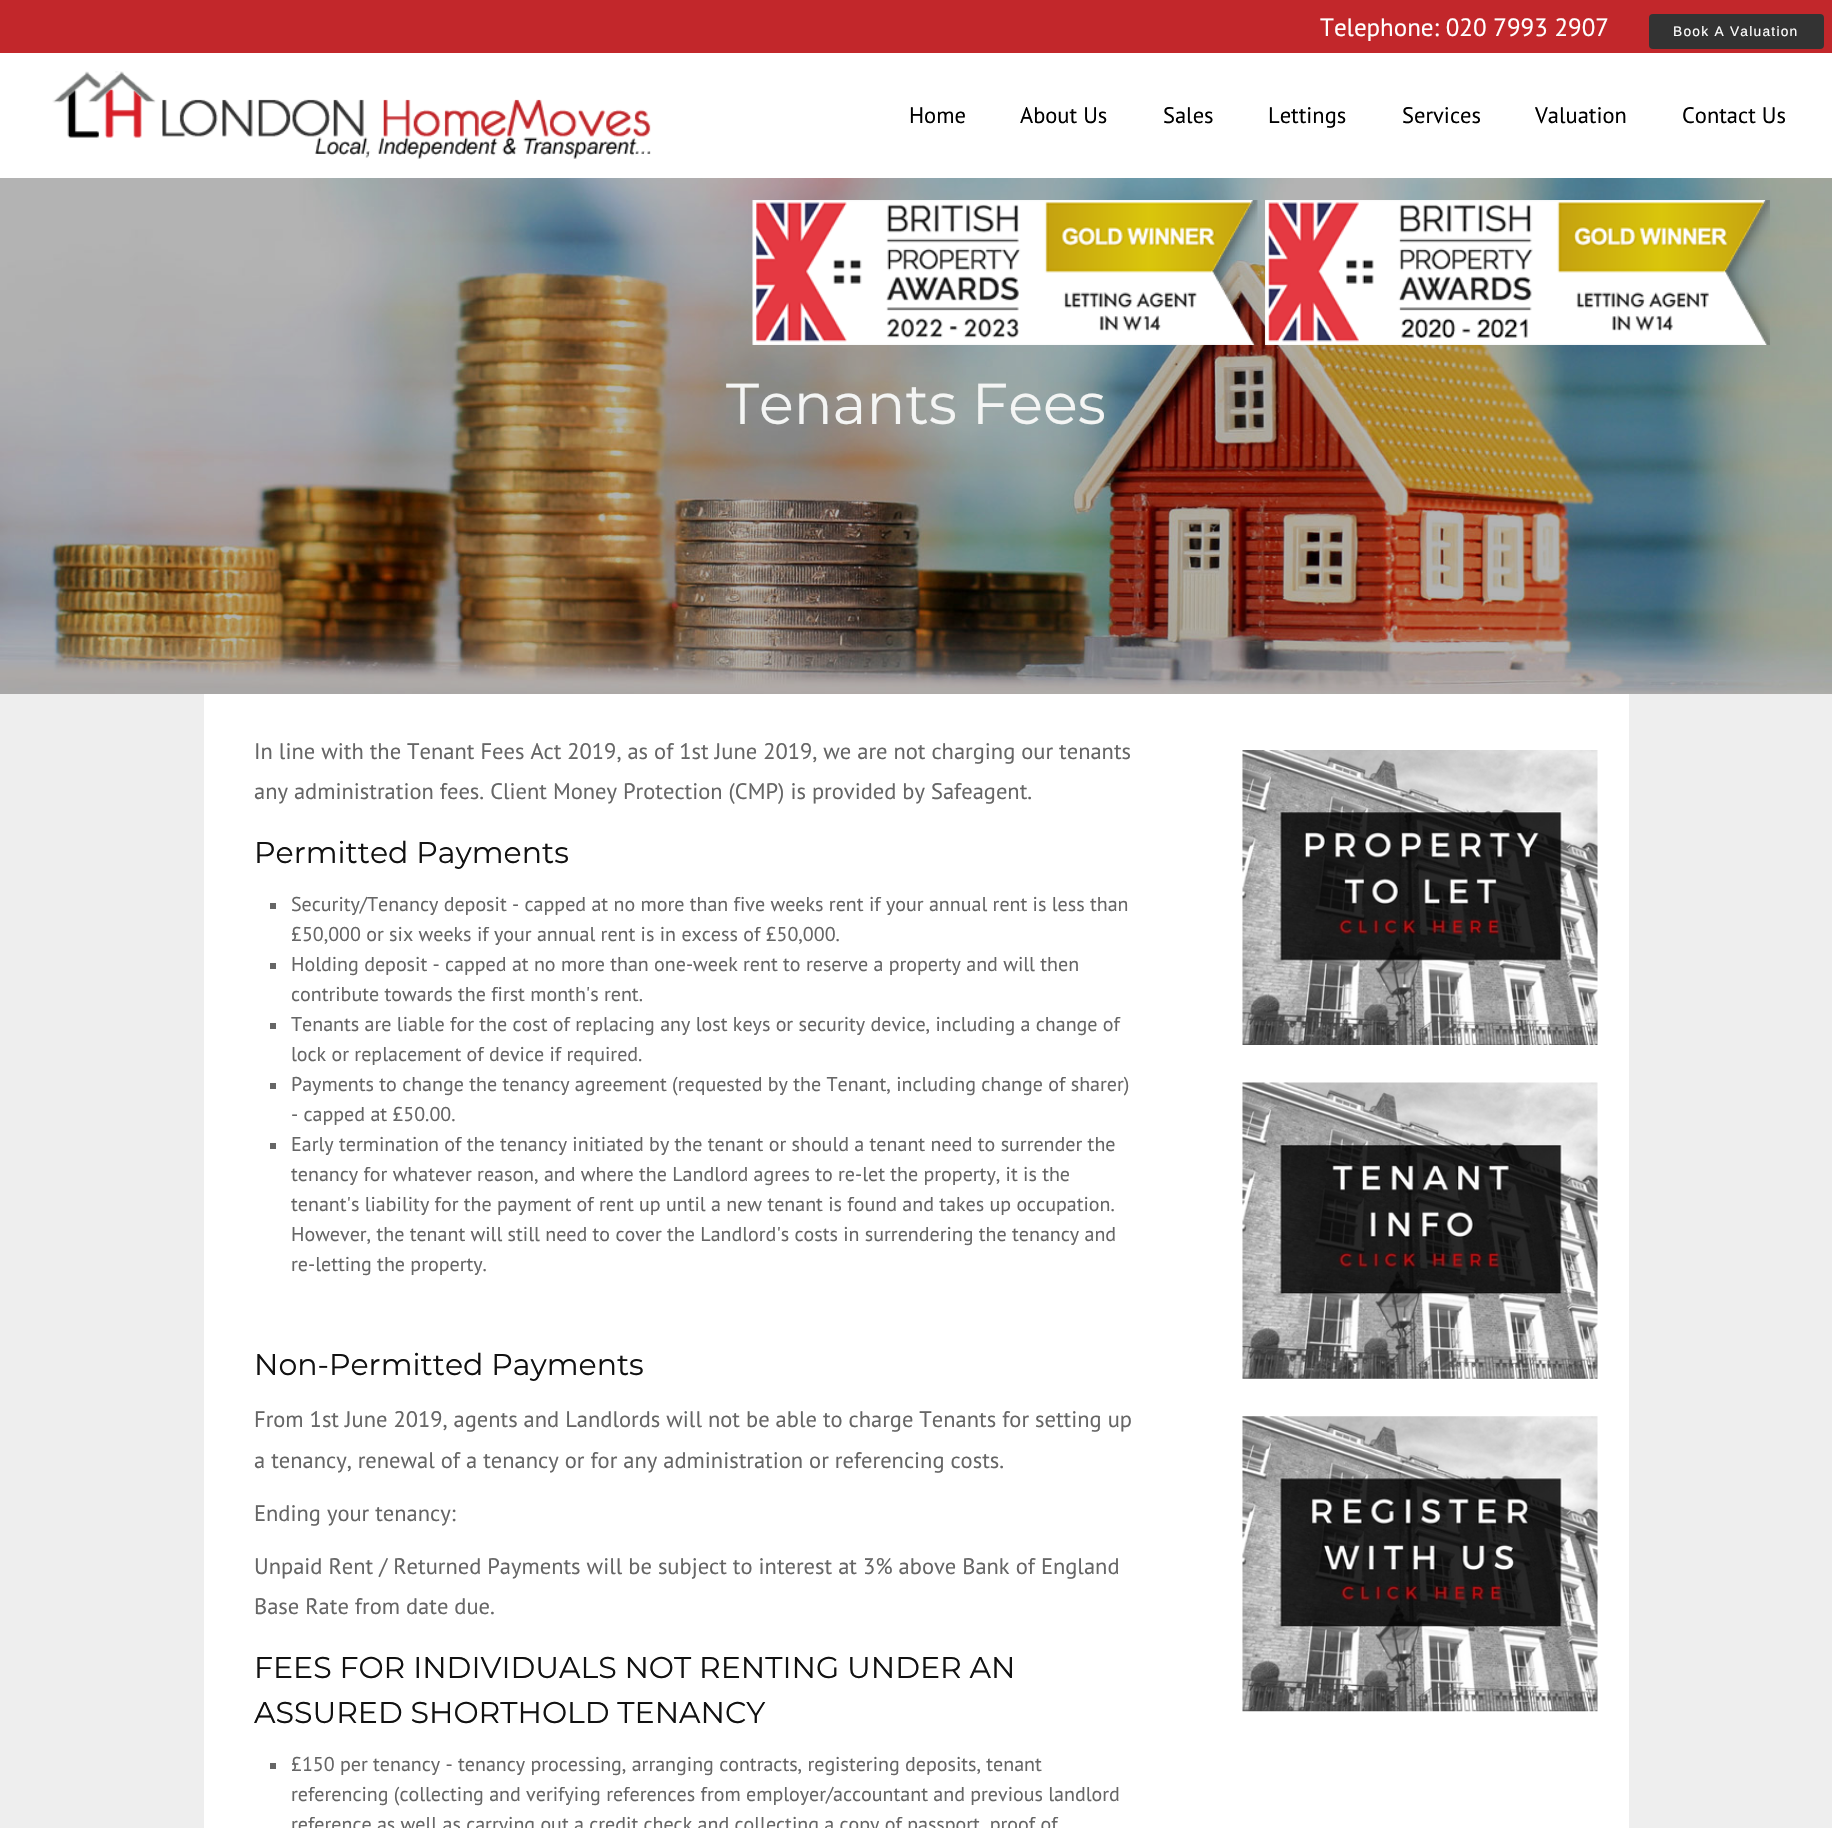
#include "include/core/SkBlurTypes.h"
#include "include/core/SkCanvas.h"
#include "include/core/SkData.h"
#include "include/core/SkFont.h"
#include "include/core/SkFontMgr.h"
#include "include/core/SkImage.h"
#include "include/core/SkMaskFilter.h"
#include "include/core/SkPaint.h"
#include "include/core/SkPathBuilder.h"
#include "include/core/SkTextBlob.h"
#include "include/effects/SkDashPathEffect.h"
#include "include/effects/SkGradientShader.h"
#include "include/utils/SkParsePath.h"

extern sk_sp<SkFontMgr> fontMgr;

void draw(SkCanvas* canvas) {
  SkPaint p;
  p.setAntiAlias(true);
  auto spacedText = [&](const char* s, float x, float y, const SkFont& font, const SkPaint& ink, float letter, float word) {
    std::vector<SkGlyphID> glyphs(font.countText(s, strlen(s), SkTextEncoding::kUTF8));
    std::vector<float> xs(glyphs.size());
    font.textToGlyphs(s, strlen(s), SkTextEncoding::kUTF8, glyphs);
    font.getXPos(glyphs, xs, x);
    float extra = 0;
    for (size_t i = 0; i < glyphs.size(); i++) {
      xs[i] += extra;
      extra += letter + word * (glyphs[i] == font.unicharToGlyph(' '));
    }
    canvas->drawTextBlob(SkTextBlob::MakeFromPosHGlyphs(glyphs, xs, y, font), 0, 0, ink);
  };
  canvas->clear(SK_ColorWHITE);
  p.setColor(SkColorSetRGB(194, 39, 43));
  canvas->drawRect(SkRect::MakeLTRB(0, 0, 1832, 53), p);
  p.setColor(SkColorSetRGB(51, 51, 51));
  canvas->drawRoundRect(SkRect::MakeLTRB(1649, 14, 1824, 49), 4, 4, p);
  canvas->drawImageRect(SkImages::DeferredFromEncodedData(SkData::MakeFromFileName("images/1.png")), SkRect::MakeLTRB(52, 71, 651, 159), SkSamplingOptions());
  canvas->drawImageRect(SkImages::DeferredFromEncodedData(SkData::MakeFromFileName("images/4.png")), SkRect::MakeLTRB(0, 178, 1832, 694), SkSamplingOptions());
  canvas->drawImageRect(SkImages::DeferredFromEncodedData(SkData::MakeFromFileName("images/2.png")), SkRect::MakeLTRB(752, 200, 1258, 345), SkSamplingOptions());
  canvas->drawImageRect(SkImages::DeferredFromEncodedData(SkData::MakeFromFileName("images/3.png")), SkRect::MakeLTRB(1265, 200, 1770, 345), SkSamplingOptions());
  p.setColor(SkColorSetRGB(238, 238, 238));
  canvas->drawRect(SkRect::MakeLTRB(0, 694, 1832, 1828), p);
  p.setColor(SK_ColorWHITE);
  canvas->drawRect(SkRect::MakeLTRB(204, 694, 1629, 1828), p);
  p.setColor(SkColorSetRGB(102, 102, 102));
  canvas->drawRect(SkRect::MakeLTRB(270, 903, 276, 909), p);
  canvas->drawRect(SkRect::MakeLTRB(270, 963, 276, 969), p);
  canvas->drawRect(SkRect::MakeLTRB(270, 1023, 276, 1029), p);
  canvas->drawRect(SkRect::MakeLTRB(270, 1083, 276, 1089), p);
  canvas->drawRect(SkRect::MakeLTRB(270, 1143, 276, 1149), p);
  canvas->drawRect(SkRect::MakeLTRB(270, 1763, 276, 1769), p);
  canvas->drawImageRect(SkImages::DeferredFromEncodedData(SkData::MakeFromFileName("images/5.png")), SkRect::MakeLTRB(1242, 750, 1598, 1045), SkSamplingOptions());
  canvas->drawImageRect(SkImages::DeferredFromEncodedData(SkData::MakeFromFileName("images/6.png")), SkRect::MakeLTRB(1242, 1082, 1598, 1379), SkSamplingOptions());
  canvas->drawImageRect(SkImages::DeferredFromEncodedData(SkData::MakeFromFileName("images/7.png")), SkRect::MakeLTRB(1242, 1416, 1598, 1712), SkSamplingOptions());
  SkFont font1(fontMgr->matchFamilyStyle("PT Sans", SkFontStyle::Normal()), 25);
  font1.setSubpixel(true);
  p.setColor(SK_ColorWHITE);
  canvas->drawString("Telephone: 020 7993 2907", 1320, 36, font1, p);
  SkFont font2(fontMgr->matchFamilyStyle("Liberation Sans", SkFontStyle::Normal()), 13.75f);
  font2.setSubpixel(true);
  spacedText("Book A Valuation", 1673, 36, font2, p, 1.25f, 0);
  SkFont font3(fontMgr->matchFamilyStyle("PT Sans", SkFontStyle::Normal()), 22.5f);
  font3.setSubpixel(true);
  p.setColor(SK_ColorBLACK);
  canvas->drawString("Home", 909, 123, font3, p);
  canvas->drawString("About Us", 1020, 123, font3, p);
  canvas->drawString("Sales", 1163, 123, font3, p);
  canvas->drawString("Lettings", 1268, 123, font3, p);
  canvas->drawString("Services", 1402, 123, font3, p);
  canvas->drawString("Valuation", 1535, 123, font3, p);
  canvas->drawString("Contact Us", 1682, 123, font3, p);
  SkFont font4(fontMgr->matchFamilyStyle("Montserrat", SkFontStyle(100, SkFontStyle::kNormal_Width, SkFontStyle::kUpright_Slant)), 57.5f);
  font4.setSubpixel(true);
  p.setColor(SkColorSetRGB(244, 245, 244));
  canvas->drawString("Tenants Fees", 726, 424, font4, p);
  p.setColor(SkColorSetRGB(102, 102, 102));
  canvas->drawString("In line with the Tenant Fees Act 2019, as of 1st June 2019, we are not charging our tenants", 254, 759, font3, p);
  canvas->drawString("any administration fees. Client Money Protection (CMP) is provided by Safeagent.", 254, 799, font3, p);
  SkFont font5(fontMgr->matchFamilyStyle("Montserrat", SkFontStyle(100, SkFontStyle::kNormal_Width, SkFontStyle::kUpright_Slant)), 30);
  font5.setSubpixel(true);
  p.setColor(SkColorSetRGB(17, 17, 17));
  canvas->drawString("Permitted Payments", 254, 863, font5, p);
  SkFont font6(fontMgr->matchFamilyStyle("PT Sans", SkFontStyle::Normal()), 20);
  font6.setSubpixel(true);
  p.setColor(SkColorSetRGB(102, 102, 102));
  canvas->drawString("Security/Tenancy deposit - capped at no more than five weeks rent if your annual rent is less than", 291, 911, font6, p);
  canvas->drawString("£50,000 or six weeks if your annual rent is in excess of £50,000.", 291, 941, font6, p);
  canvas->drawString("Holding deposit - capped at no more than one-week rent to reserve a property and will then", 291, 971, font6, p);
  canvas->drawString("contribute towards the first month's rent.", 291, 1001, font6, p);
  canvas->drawString("Tenants are liable for the cost of replacing any lost keys or security device, including a change of", 291, 1031, font6, p);
  canvas->drawString("lock or replacement of device if required.", 291, 1061, font6, p);
  canvas->drawString("Payments to change the tenancy agreement (requested by the Tenant, including change of sharer)", 291, 1091, font6, p);
  canvas->drawString("- capped at £50.00.", 291, 1121, font6, p);
  canvas->drawString("Early termination of the tenancy initiated by the tenant or should a tenant need to surrender the", 291, 1151, font6, p);
  canvas->drawString("tenancy for whatever reason, and where the Landlord agrees to re-let the property, it is the", 291, 1181, font6, p);
  canvas->drawString("tenant's liability for the payment of rent up until a new tenant is found and takes up occupation.", 291, 1211, font6, p);
  canvas->drawString("However, the tenant will still need to cover the Landlord's costs in surrendering the tenancy and", 291, 1241, font6, p);
  canvas->drawString("re-letting the property.", 291, 1271, font6, p);
  p.setColor(SkColorSetRGB(17, 17, 17));
  canvas->drawString("Non-Permitted Payments", 254, 1375, font5, p);
  p.setColor(SkColorSetRGB(102, 102, 102));
  canvas->drawString("From 1st June 2019, agents and Landlords will not be able to charge Tenants for setting up", 254, 1427, font3, p);
  canvas->drawString("a tenancy, renewal of a tenancy or for any administration or referencing costs.", 254, 1468, font3, p);
  canvas->drawString("Ending your tenancy:", 254, 1521, font3, p);
  canvas->drawString("Unpaid Rent / Returned Payments will be subject to interest at 3% above Bank of England", 254, 1574, font3, p);
  canvas->drawString("Base Rate from date due.", 254, 1614, font3, p);
  p.setColor(SkColorSetRGB(17, 17, 17));
  canvas->drawString("FEES FOR INDIVIDUALS NOT RENTING UNDER AN", 254, 1678, font5, p);
  canvas->drawString("ASSURED SHORTHOLD TENANCY", 254, 1723, font5, p);
  p.setColor(SkColorSetRGB(102, 102, 102));
  canvas->drawString("£150 per tenancy - tenancy processing, arranging contracts, registering deposits, tenant", 291, 1771, font6, p);
  canvas->drawString("referencing (collecting and verifying references from employer/accountant and previous landlord", 291, 1801, font6, p);
  canvas->drawString("reference as well as carrying out a credit check and collecting a copy of passport, proof of", 291, 1831, font6, p);
}
